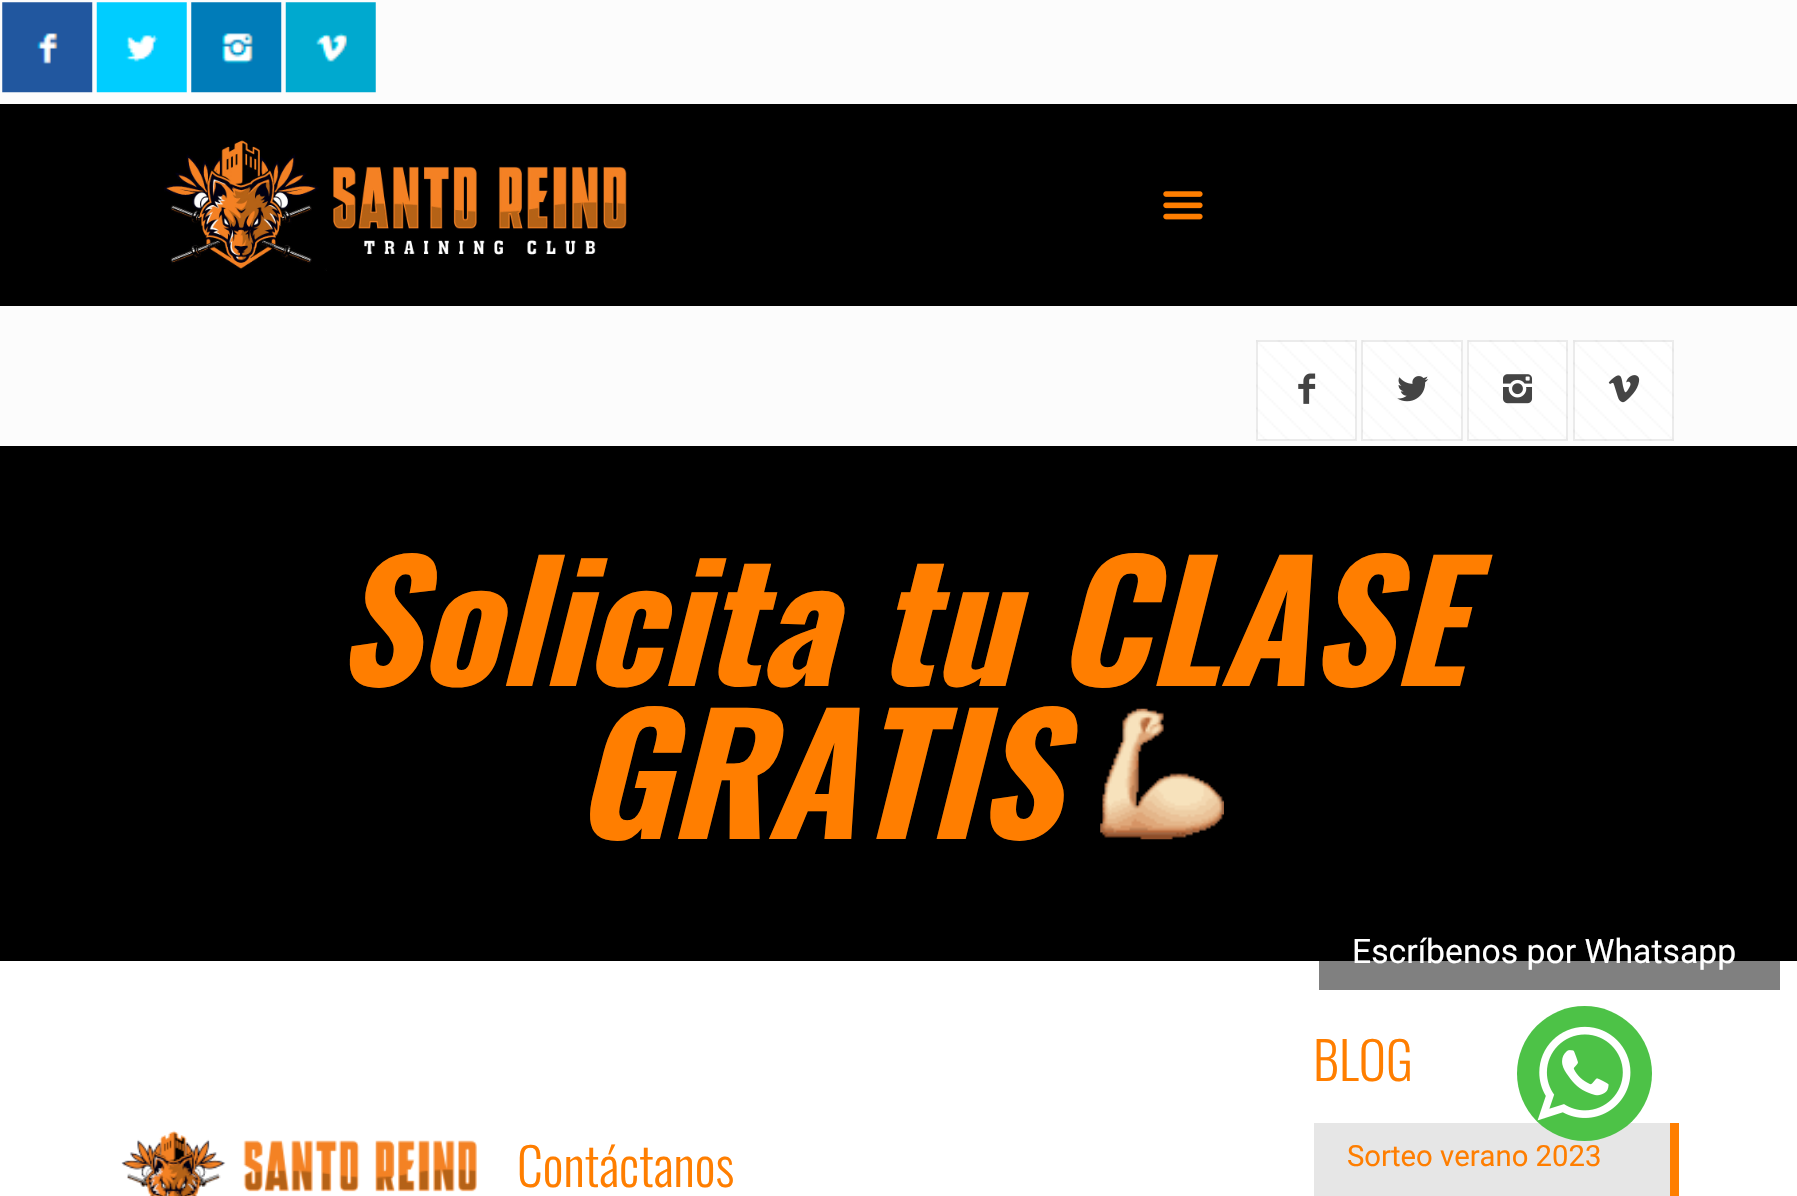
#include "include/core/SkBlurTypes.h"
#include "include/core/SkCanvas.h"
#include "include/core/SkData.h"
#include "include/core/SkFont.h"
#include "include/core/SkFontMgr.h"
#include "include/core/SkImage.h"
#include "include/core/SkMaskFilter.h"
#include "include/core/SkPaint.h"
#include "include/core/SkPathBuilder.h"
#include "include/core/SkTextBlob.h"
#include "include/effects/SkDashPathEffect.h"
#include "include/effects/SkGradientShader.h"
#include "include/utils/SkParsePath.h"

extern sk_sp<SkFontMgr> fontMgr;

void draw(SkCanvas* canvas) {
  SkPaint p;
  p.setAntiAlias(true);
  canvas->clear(SkColorSetRGB(252, 252, 252));
  canvas->drawImageRect(SkImages::DeferredFromEncodedData(SkData::MakeFromFileName("images/1.png")), SkRect::MakeLTRB(2, 2, 93, 93), SkSamplingOptions());
  canvas->drawImageRect(SkImages::DeferredFromEncodedData(SkData::MakeFromFileName("images/2.png")), SkRect::MakeLTRB(96, 2, 187, 93), SkSamplingOptions());
  canvas->drawImageRect(SkImages::DeferredFromEncodedData(SkData::MakeFromFileName("images/3.png")), SkRect::MakeLTRB(191, 2, 282, 93), SkSamplingOptions());
  canvas->drawImageRect(SkImages::DeferredFromEncodedData(SkData::MakeFromFileName("images/4.png")), SkRect::MakeLTRB(285, 2, 376, 93), SkSamplingOptions());
  p.setColor(SK_ColorBLACK);
  canvas->drawRect(SkRect::MakeLTRB(0, 104, 1797, 306), p);
  canvas->drawImageRect(SkImages::DeferredFromEncodedData(SkData::MakeFromFileName("images/5.png")), SkRect::MakeLTRB(164, 140, 627, 271), SkSamplingOptions());
  canvas->drawImageRect(SkImages::DeferredFromEncodedData(SkData::MakeFromFileName("images/6.png")), SkRect::MakeLTRB(1163, 191, 1203, 220), SkSamplingOptions());
  p.setColor(SK_ColorWHITE);
  canvas->drawRect(SkRect::MakeLTRB(1256, 340, 1357, 441), p);
  canvas->drawImageRect(SkImages::DeferredFromEncodedData(SkData::MakeFromFileName("images/7.png")), SkRect::MakeLTRB(1256, 340, 1356, 440), SkSamplingOptions());
  p.setStyle(SkPaint::kStroke_Style);
  p.setStrokeWidth(2);
  p.setColor(SkColorSetARGB(20, 0, 0, 0));
  canvas->drawRect(SkRect::MakeLTRB(1257, 341, 1356, 440), p);
  canvas->drawImageRect(SkImages::DeferredFromEncodedData(SkData::MakeFromFileName("images/8.png")), SkRect::MakeLTRB(1298, 373, 1316, 404), SkSamplingOptions());
  p.setStyle(SkPaint::kFill_Style);
  p.setColor(SK_ColorWHITE);
  canvas->drawRect(SkRect::MakeLTRB(1361, 340, 1463, 441), p);
  canvas->drawImageRect(SkImages::DeferredFromEncodedData(SkData::MakeFromFileName("images/9.png")), SkRect::MakeLTRB(1362, 340, 1462, 441), SkSamplingOptions());
  p.setStyle(SkPaint::kStroke_Style);
  p.setColor(SkColorSetARGB(20, 0, 0, 0));
  canvas->drawRect(SkRect::MakeLTRB(1362, 341, 1462, 440), p);
  canvas->drawImageRect(SkImages::DeferredFromEncodedData(SkData::MakeFromFileName("images/10.png")), SkRect::MakeLTRB(1397, 376, 1429, 402), SkSamplingOptions());
  p.setStyle(SkPaint::kFill_Style);
  p.setColor(SK_ColorWHITE);
  canvas->drawRect(SkRect::MakeLTRB(1467, 340, 1568, 441), p);
  canvas->drawImageRect(SkImages::DeferredFromEncodedData(SkData::MakeFromFileName("images/11.png")), SkRect::MakeLTRB(1468, 340, 1568, 440), SkSamplingOptions());
  p.setStyle(SkPaint::kStroke_Style);
  p.setColor(SkColorSetARGB(20, 0, 0, 0));
  canvas->drawRect(SkRect::MakeLTRB(1468, 341, 1567, 440), p);
  canvas->drawImageRect(SkImages::DeferredFromEncodedData(SkData::MakeFromFileName("images/12.png")), SkRect::MakeLTRB(1503, 374, 1533, 404), SkSamplingOptions());
  p.setStyle(SkPaint::kFill_Style);
  p.setColor(SK_ColorWHITE);
  canvas->drawRect(SkRect::MakeLTRB(1573, 340, 1674, 441), p);
  canvas->drawImageRect(SkImages::DeferredFromEncodedData(SkData::MakeFromFileName("images/13.png")), SkRect::MakeLTRB(1573, 340, 1674, 441), SkSamplingOptions());
  p.setStyle(SkPaint::kStroke_Style);
  p.setColor(SkColorSetARGB(20, 0, 0, 0));
  canvas->drawRect(SkRect::MakeLTRB(1574, 341, 1673, 440), p);
  canvas->drawImageRect(SkImages::DeferredFromEncodedData(SkData::MakeFromFileName("images/14.png")), SkRect::MakeLTRB(1608, 375, 1640, 403), SkSamplingOptions());
  p.setStyle(SkPaint::kFill_Style);
  p.setColor(SK_ColorWHITE);
  canvas->drawRect(SkRect::MakeLTRB(0, 961, 1797, 1196), p);
  p.setColor(SkColorSetRGB(128, 128, 128));
  canvas->drawRect(SkRect::MakeLTRB(1319, 961, 1780, 990), p);
  p.setColor(SK_ColorBLACK);
  canvas->drawRect(SkRect::MakeLTRB(0, 446, 1797, 961), p);
  canvas->drawImageRect(SkImages::DeferredFromEncodedData(SkData::MakeFromFileName("images/15.png")), SkRect::MakeLTRB(1100, 708, 1224, 840), SkSamplingOptions());
  canvas->drawImageRect(SkImages::DeferredFromEncodedData(SkData::MakeFromFileName("images/16.png")), SkRect::MakeLTRB(121, 1130, 477, 1196), SkSamplingOptions());
  p.setColor(SkColorSetRGB(230, 230, 230));
  canvas->drawRect(SkRect::MakeLTRB(1314, 1123, 1670, 1196), p);
  p.setColor(SkColorSetRGB(255, 126, 0));
  canvas->drawRect(SkRect::MakeLTRB(1670, 1123, 1679, 1196), p);
  p.setColor(SkColorSetRGB(77, 194, 71));
  canvas->drawCircle(1584.5f, 1073.5f, 67.5f, p);
  canvas->drawImageRect(SkImages::DeferredFromEncodedData(SkData::MakeFromFileName("images/17.png")), SkRect::MakeLTRB(1537, 1026, 1631, 1121), SkSamplingOptions());
  SkFont font1(fontMgr->matchFamilyStyle("Oswald", SkFontStyle::BoldItalic()), 162);
  font1.setSubpixel(true);
  p.setColor(SkColorSetRGB(255, 126, 0));
  canvas->drawString("Solicita tu CLASE", 335, 686, font1, p);
  canvas->drawString("GRATIS", 574, 839, font1, p);
  SkFont font2(fontMgr->matchFamilyStyle("Oswald", SkFontStyle(300, SkFontStyle::kNormal_Width, SkFontStyle::kUpright_Slant)), 51.75f);
  font2.setSubpixel(true);
  canvas->drawString("Contáctanos", 517, 1187, font2, p);
  canvas->drawString("BLOG", 1313, 1081, font2, p);
  SkFont font3(fontMgr->matchFamilyStyle("Roboto", SkFontStyle::Normal()), 29.25f);
  font3.setSubpixel(true);
  canvas->drawString("Sorteo verano 2023", 1347, 1166, font3, p);
  SkFont font4(fontMgr->matchFamilyStyle("Roboto", SkFontStyle::Normal()), 33.75f);
  font4.setSubpixel(true);
  p.setColor(SK_ColorWHITE);
  canvas->drawString("Escríbenos por Whatsapp", 1352, 963, font4, p);
}
